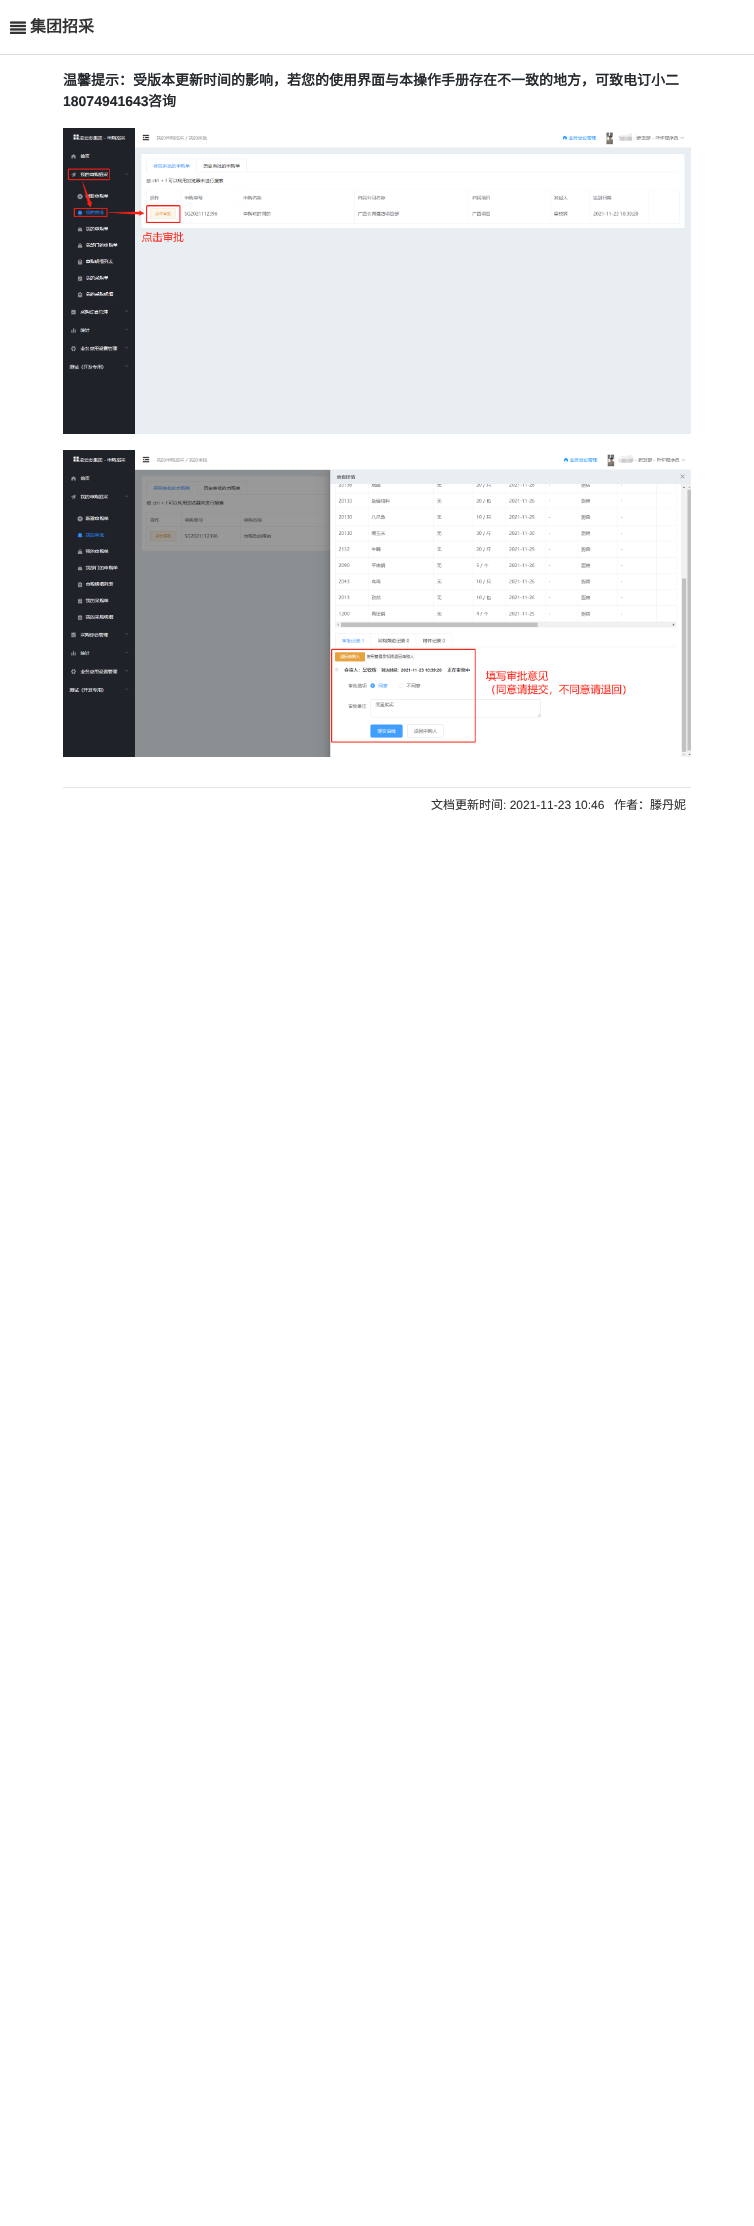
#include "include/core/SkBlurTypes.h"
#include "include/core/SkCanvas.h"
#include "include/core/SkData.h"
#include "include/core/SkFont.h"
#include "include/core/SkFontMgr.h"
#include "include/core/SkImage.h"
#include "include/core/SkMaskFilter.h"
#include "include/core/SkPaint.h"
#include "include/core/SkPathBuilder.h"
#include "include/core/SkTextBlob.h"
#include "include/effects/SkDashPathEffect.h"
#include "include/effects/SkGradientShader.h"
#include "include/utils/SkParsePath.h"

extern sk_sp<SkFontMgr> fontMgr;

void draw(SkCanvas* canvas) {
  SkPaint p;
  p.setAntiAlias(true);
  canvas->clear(SK_ColorWHITE);
  canvas->drawImageRect(SkImages::DeferredFromEncodedData(SkData::MakeFromFileName("images/1.png")), SkRect::MakeLTRB(10, 21, 26, 34), SkSamplingOptions());
  p.setColor(SkColorSetRGB(221, 221, 221));
  canvas->drawRect(SkRect::MakeLTRB(0, 54, 754, 55), p);
  canvas->drawImageRect(SkImages::DeferredFromEncodedData(SkData::MakeFromFileName("images/2.png")), SkRect::MakeLTRB(63, 128, 691, 434), SkSamplingOptions());
  canvas->drawImageRect(SkImages::DeferredFromEncodedData(SkData::MakeFromFileName("images/3.png")), SkRect::MakeLTRB(63, 450, 691, 757), SkSamplingOptions());
  p.setColor(SkColorSetRGB(229, 229, 229));
  canvas->drawRect(SkRect::MakeLTRB(63, 787, 691, 788), p);
  SkFont font1(fontMgr->matchFamilyStyle("Noto Sans CJK SC", SkFontStyle::Bold()), 16);
  font1.setSubpixel(true);
  p.setColor(SkColorSetRGB(51, 51, 51));
  canvas->drawString("集团招采", 30, 32, font1, p);
  SkFont font2(fontMgr->matchFamilyStyle("Noto Sans CJK SC", SkFontStyle::Bold()), 14);
  font2.setSubpixel(true);
  p.setColor(SkColorSetRGB(36, 41, 46));
  canvas->drawString("温馨提示：受版本更新时间的影响，若您的使用界面与本操作手册存在不一致的地方，可致电订小二", 63, 85, font2, p);
  SkFont font3(fontMgr->matchFamilyStyle("Liberation Sans", SkFontStyle::Bold()), 14);
  font3.setSubpixel(true);
  canvas->drawString("18074941643", 63, 106, font3, p);
  canvas->drawString("咨询", 148, 106, font2, p);
  SkFont font4(fontMgr->matchFamilyStyle("Noto Sans CJK SC", SkFontStyle::Normal()), 12);
  font4.setSubpixel(true);
  p.setColor(SkColorSetRGB(51, 51, 51));
  canvas->drawString("文档更新时间", 431, 809, font4, p);
  SkFont font5(fontMgr->matchFamilyStyle("Liberation Sans", SkFontStyle::Normal()), 12);
  font5.setSubpixel(true);
  canvas->drawString(": 2021-11-23 10:46", 503, 809, font5, p);
  canvas->drawString("作者：滕丹妮", 614, 809, font4, p);
}
